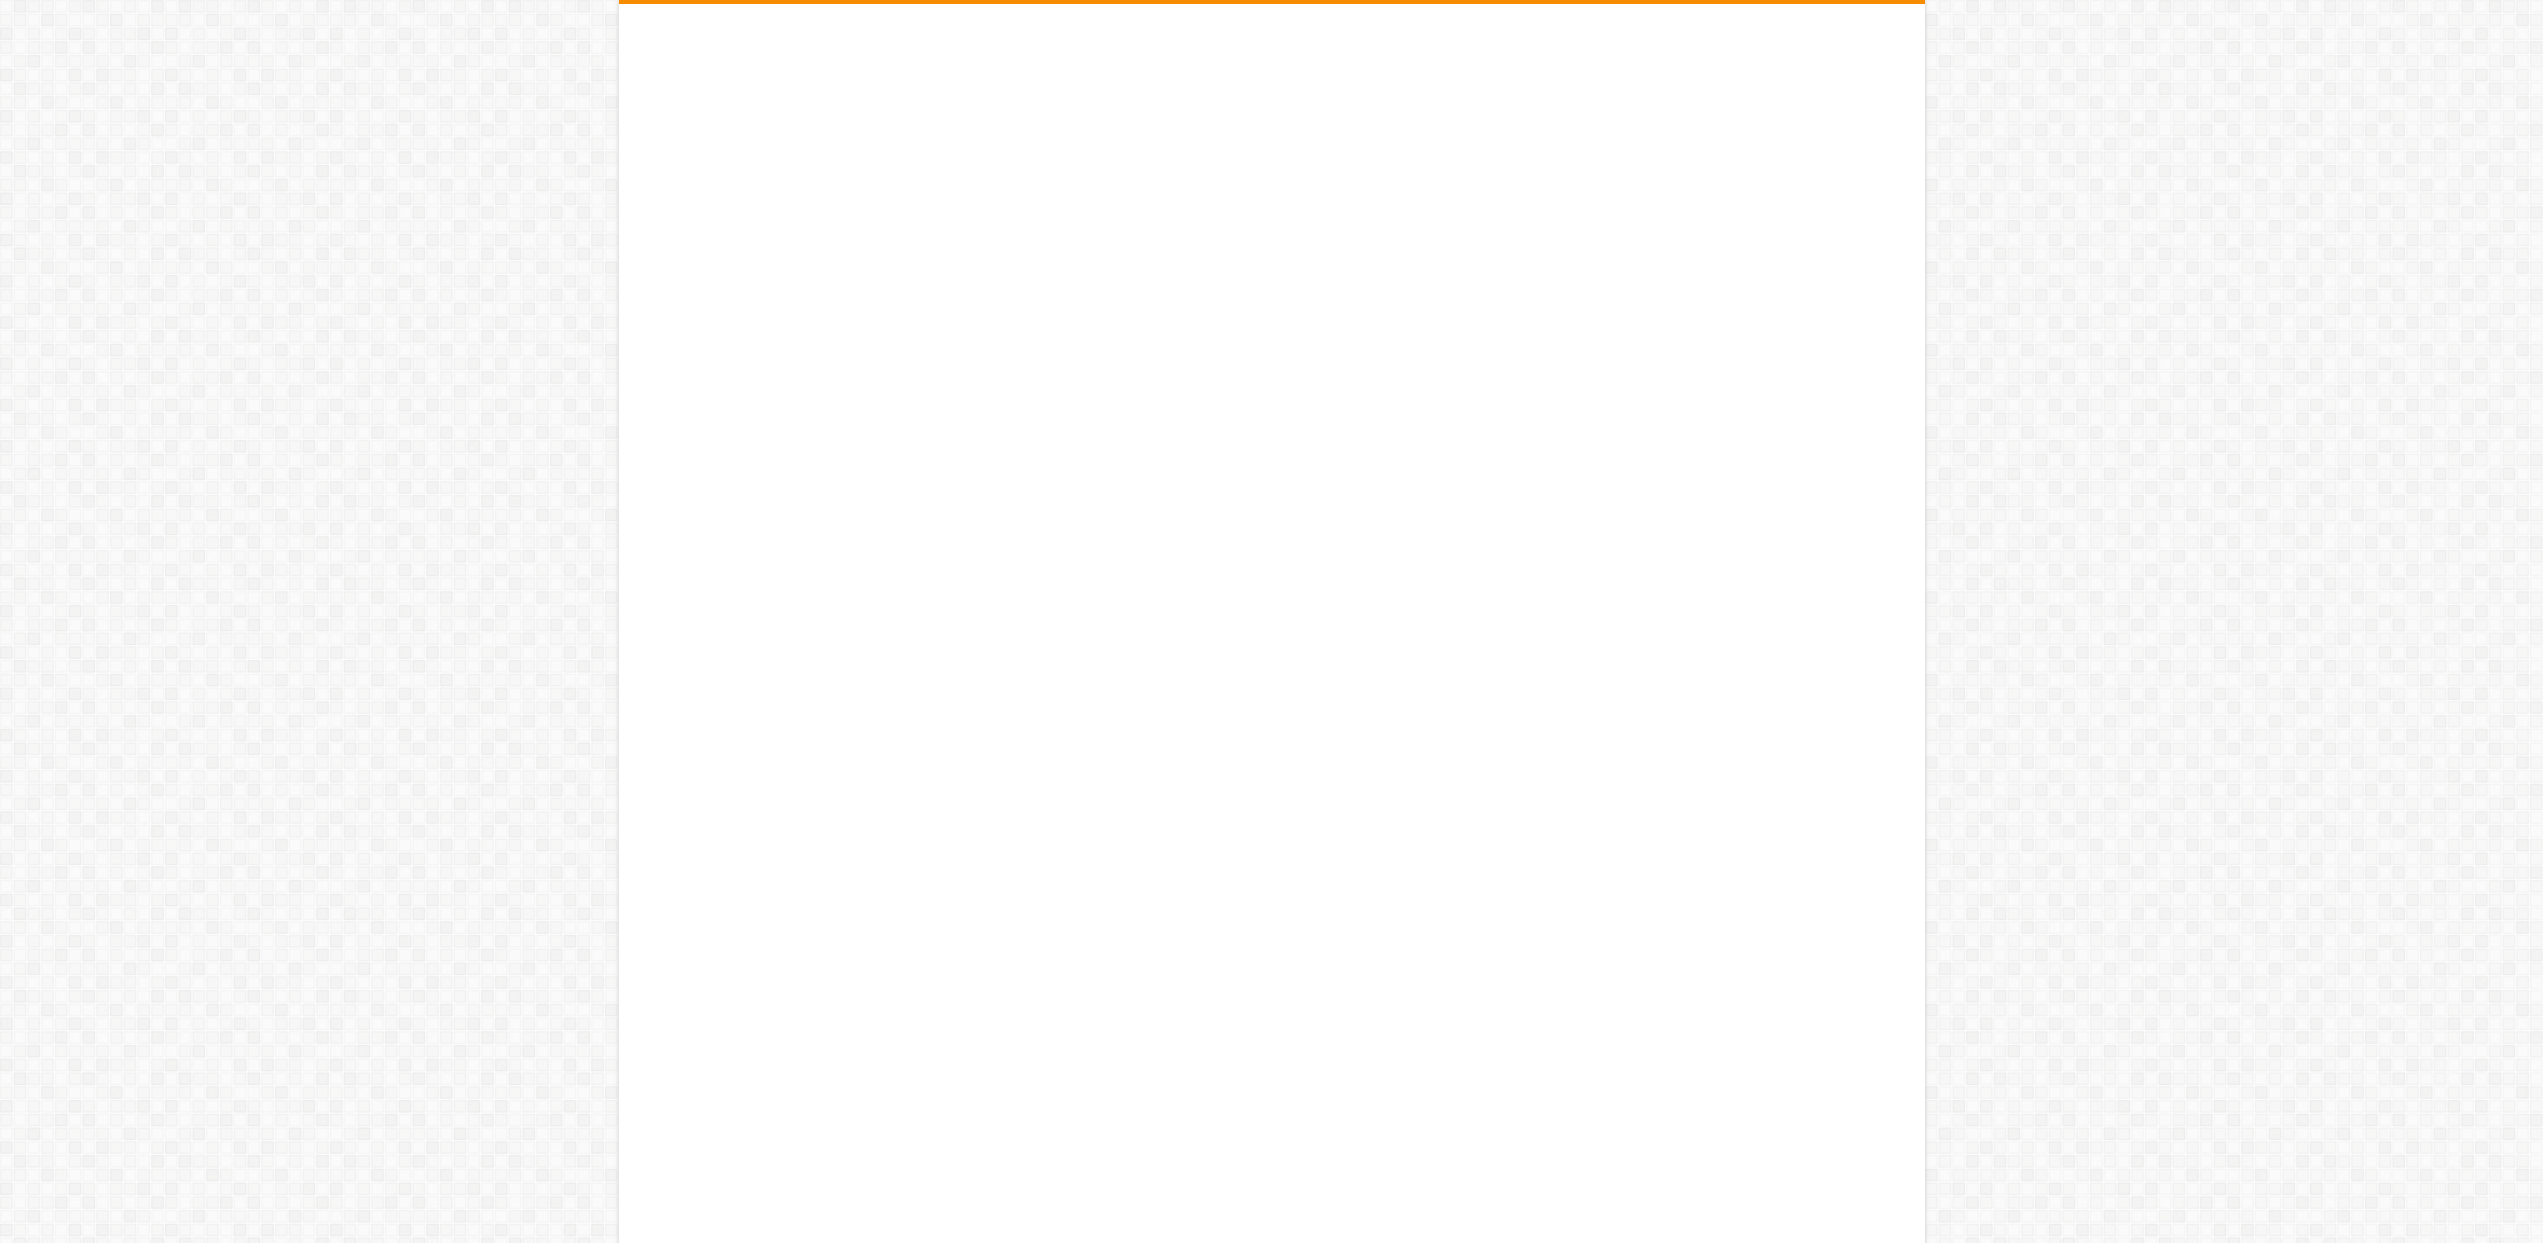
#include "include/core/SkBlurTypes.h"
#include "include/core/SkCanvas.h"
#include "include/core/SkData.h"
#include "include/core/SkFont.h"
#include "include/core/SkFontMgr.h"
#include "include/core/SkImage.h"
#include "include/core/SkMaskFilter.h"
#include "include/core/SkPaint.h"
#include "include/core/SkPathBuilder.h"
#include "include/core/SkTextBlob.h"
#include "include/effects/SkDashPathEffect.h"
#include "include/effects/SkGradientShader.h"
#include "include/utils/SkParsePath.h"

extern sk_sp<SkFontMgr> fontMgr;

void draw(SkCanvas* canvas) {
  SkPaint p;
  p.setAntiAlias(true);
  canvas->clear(SK_ColorWHITE);
  canvas->drawImageRect(SkImages::DeferredFromEncodedData(SkData::MakeFromFileName("images/1.png")), SkRect::MakeLTRB(0, 0, 2543, 1243), SkSamplingOptions());
  p.setColor(SkColorSetRGB(202, 202, 202));
  p.setMaskFilter(SkMaskFilter::MakeBlur(kNormal_SkBlurStyle, 2));
  canvas->drawRect(SkRect::MakeLTRB(619, 0, 1925, 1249), p);
  p.setMaskFilter(nullptr);
  p.setColor(SK_ColorWHITE);
  canvas->drawRect(SkRect::MakeLTRB(619, 4, 1925, 1243), p);
  p.setColor(SkColorSetRGB(248, 140, 0));
  canvas->drawRect(SkRect::MakeLTRB(619, 0, 1925, 4), p);
}
